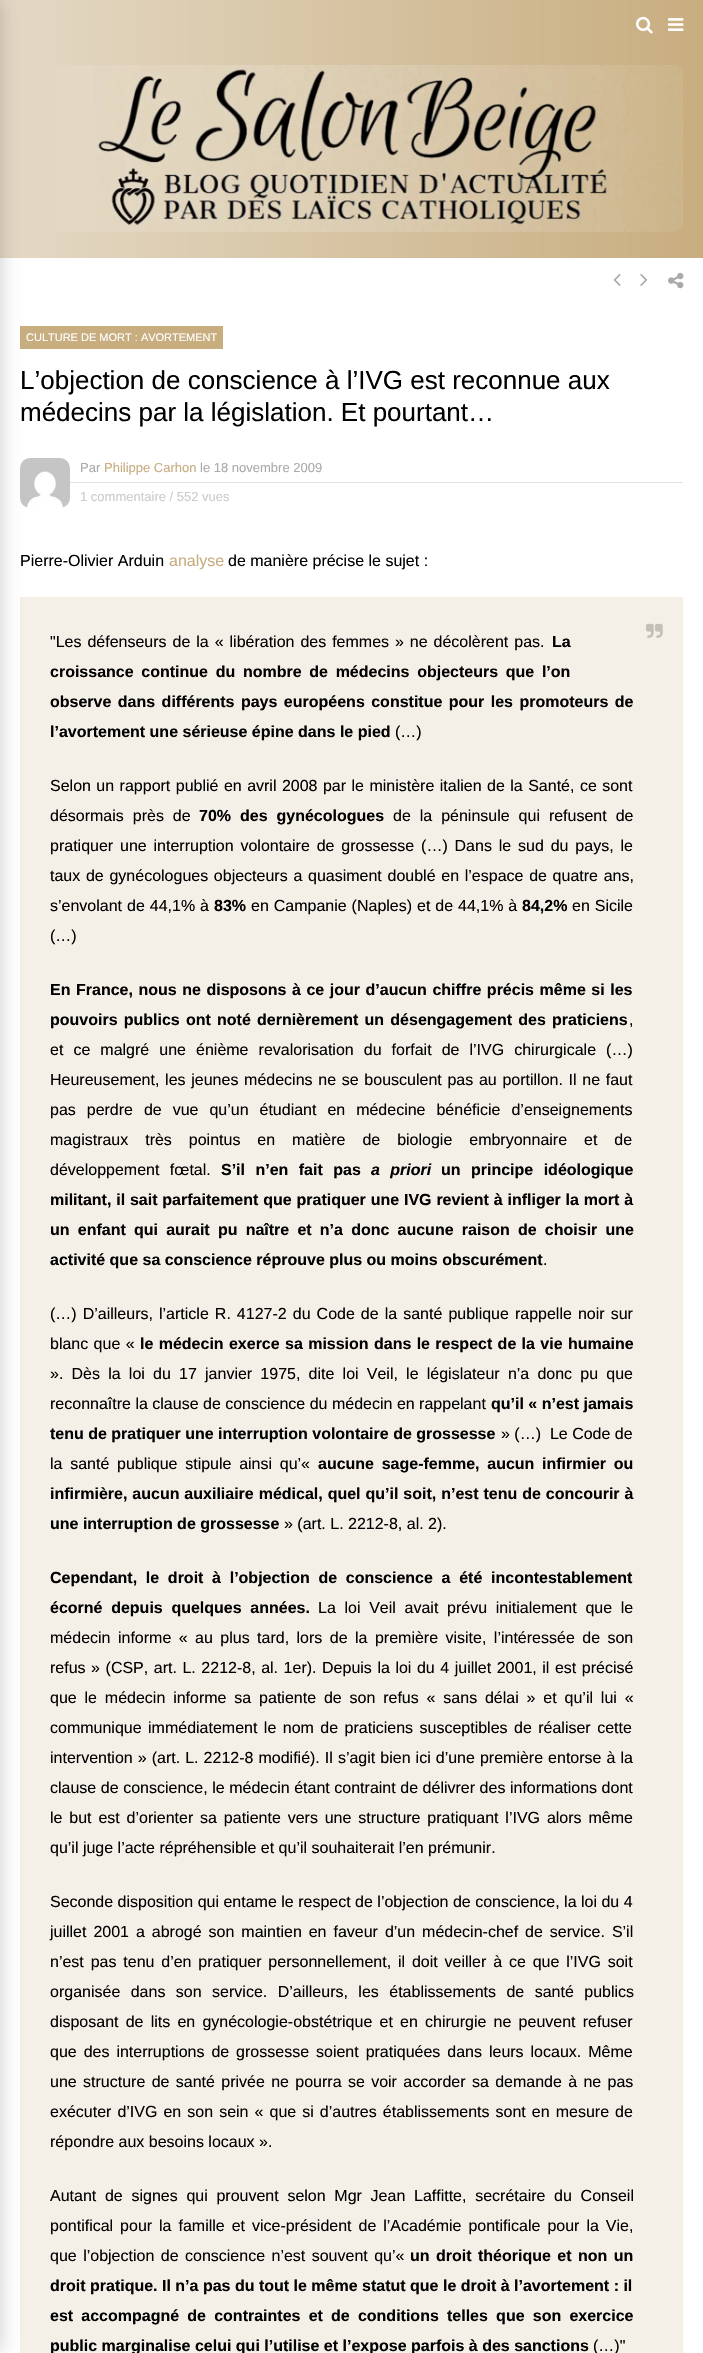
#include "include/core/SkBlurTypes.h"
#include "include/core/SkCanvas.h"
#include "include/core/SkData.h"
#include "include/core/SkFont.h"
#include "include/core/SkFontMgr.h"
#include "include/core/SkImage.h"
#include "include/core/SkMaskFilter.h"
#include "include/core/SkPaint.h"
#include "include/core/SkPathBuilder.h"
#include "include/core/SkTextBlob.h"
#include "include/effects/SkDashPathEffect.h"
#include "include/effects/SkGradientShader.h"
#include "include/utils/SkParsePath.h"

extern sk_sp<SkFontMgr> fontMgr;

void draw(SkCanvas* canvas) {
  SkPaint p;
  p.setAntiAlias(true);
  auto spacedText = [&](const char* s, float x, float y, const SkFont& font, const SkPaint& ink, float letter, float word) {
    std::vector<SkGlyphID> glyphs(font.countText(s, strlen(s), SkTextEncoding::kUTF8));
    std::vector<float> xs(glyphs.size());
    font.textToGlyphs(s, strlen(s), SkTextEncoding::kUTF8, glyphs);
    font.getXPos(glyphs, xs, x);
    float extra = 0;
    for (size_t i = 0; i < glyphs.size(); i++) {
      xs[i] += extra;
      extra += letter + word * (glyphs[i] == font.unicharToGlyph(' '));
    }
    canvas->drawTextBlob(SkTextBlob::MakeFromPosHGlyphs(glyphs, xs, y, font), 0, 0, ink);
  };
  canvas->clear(SK_ColorWHITE);
  {
    const SkColor colors[] = {SkColorSetRGB(228, 217, 197), SkColorSetRGB(200, 173, 127)};
    const float stops[] = {0, 1};
    const SkPoint ends[] = {{0, 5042}, {703, 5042}};
    p.setShader(SkGradientShader::MakeLinear(ends, colors, stops, 2, SkTileMode::kClamp));
    p.setAlpha(255);
  }
  canvas->drawRect(SkRect::MakeLTRB(0, 0, 703, 258), p);
  p.setShader(nullptr);
  p.setColor(SkColorSetRGB(200, 173, 127));
  canvas->drawRect(SkRect::MakeLTRB(20, 326, 223, 349), p);
  canvas->drawImageRect(SkImages::DeferredFromEncodedData(SkData::MakeFromFileName("images/7.png")), SkRect::MakeLTRB(20, 458, 70, 508), SkSamplingOptions());
  p.setColor(SkColorSetRGB(244, 239, 231));
  canvas->drawRect(SkRect::MakeLTRB(20, 597, 683, 2353), p);
  p.setColor(SkColorSetARGB(51, 0, 0, 0));
  p.setMaskFilter(SkMaskFilter::MakeBlur(kNormal_SkBlurStyle, 10));
  canvas->drawRect(SkRect::MakeLTRB(-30, 0, 0, 2353), p);
  p.setMaskFilter(nullptr);
  canvas->drawImageRect(SkImages::DeferredFromEncodedData(SkData::MakeFromFileName("images/1.png")), SkRect::MakeLTRB(636, 16, 653, 34), SkSamplingOptions());
  canvas->drawImageRect(SkImages::DeferredFromEncodedData(SkData::MakeFromFileName("images/2.png")), SkRect::MakeLTRB(668, 18, 684, 31), SkSamplingOptions());
  canvas->drawImageRect(SkImages::DeferredFromEncodedData(SkData::MakeFromFileName("images/3.png")), SkRect::MakeLTRB(55, 65, 683, 232), SkSamplingOptions());
  canvas->drawImageRect(SkImages::DeferredFromEncodedData(SkData::MakeFromFileName("images/4.png")), SkRect::MakeLTRB(613, 273, 621, 286), SkSamplingOptions());
  canvas->drawImageRect(SkImages::DeferredFromEncodedData(SkData::MakeFromFileName("images/5.png")), SkRect::MakeLTRB(640, 273, 648, 286), SkSamplingOptions());
  canvas->drawImageRect(SkImages::DeferredFromEncodedData(SkData::MakeFromFileName("images/6.png")), SkRect::MakeLTRB(668, 272, 684, 289), SkSamplingOptions());
  p.setColor(SkColorSetRGB(224, 224, 224));
  canvas->drawRect(SkRect::MakeLTRB(70, 482, 683, 483), p);
  canvas->drawImageRect(SkImages::DeferredFromEncodedData(SkData::MakeFromFileName("images/8.png")), SkRect::MakeLTRB(646, 623, 663, 638), SkSamplingOptions());
  SkFont font1(fontMgr->matchFamilyStyle("Liberation Sans", SkFontStyle::Normal()), 11);
  font1.setSubpixel(true);
  p.setColor(SK_ColorWHITE);
  canvas->drawString("CULTURE DE MORT : AVORTEMENT", 26, 341, font1, p);
  SkFont font2(fontMgr->matchFamilyStyle("Liberation Sans", SkFontStyle::Normal()), 26);
  font2.setSubpixel(true);
  p.setColor(SK_ColorBLACK);
  canvas->drawString("L’objection de conscience à l’IVG est reconnue aux", 20, 389, font2, p);
  canvas->drawString("médecins par la législation. Et pourtant…", 20, 421, font2, p);
  SkFont font3(fontMgr->matchFamilyStyle("Liberation Sans", SkFontStyle::Normal()), 13);
  font3.setSubpixel(true);
  p.setColor(SkColorSetRGB(170, 170, 170));
  canvas->drawString("Par", 80, 472, font3, p);
  p.setColor(SkColorSetRGB(200, 173, 127));
  canvas->drawString("Philippe Carhon", 104, 472, font3, p);
  p.setColor(SkColorSetRGB(170, 170, 170));
  canvas->drawString("le 18 novembre 2009", 200, 472, font3, p);
  p.setColor(SkColorSetRGB(204, 204, 204));
  canvas->drawString("1 commentaire / 552 vues", 80, 501, font3, p);
  SkFont font4(fontMgr->matchFamilyStyle("Liberation Sans", SkFontStyle::Normal()), 16);
  font4.setSubpixel(true);
  p.setColor(SK_ColorBLACK);
  canvas->drawString("Pierre-Olivier Arduin", 20, 566, font4, p);
  p.setColor(SkColorSetRGB(200, 173, 127));
  canvas->drawString("analyse", 169, 566, font4, p);
  p.setColor(SK_ColorBLACK);
  canvas->drawString("de manière précise le sujet :", 228, 566, font4, p);
  spacedText("\"Les défenseurs de la « libération des femmes » ne décolèrent pas.", 50, 647, font4, p, 0, 1.5f);
  SkFont font5(fontMgr->matchFamilyStyle("Liberation Sans", SkFontStyle::Bold()), 16);
  font5.setSubpixel(true);
  canvas->drawString("La", 552, 647, font5, p);
  spacedText("croissance continue du nombre de médecins objecteurs que l’on", 50, 677, font5, p, 0, 3.25f);
  spacedText("observe dans différents pays européens constitue pour les promoteurs de", 50, 707, font5, p, 0, 2);
  canvas->drawString("l’avortement une sérieuse épine dans le pied", 50, 737, font5, p);
  canvas->drawString("(…)", 395, 737, font4, p);
  spacedText("Selon un rapport publié en avril 2008 par le ministère italien de la Santé, ce sont", 50, 791, font4, p, 0, 1);
  spacedText("désormais près de", 50, 821, font4, p, 0, 4.5f);
  spacedText("70% des gynécologues", 199, 821, font5, p, 0, 4.5f);
  spacedText("de la péninsule qui refusent de", 393, 821, font4, p, 0, 4.5f);
  spacedText("pratiquer une interruption volontaire de grossesse (…) Dans le sud du pays, le", 50, 851, font4, p, 0, 2.4f);
  spacedText("taux de gynécologues objecteurs a quasiment doublé en l’espace de quatre ans,", 50, 881, font4, p, 0, 1.25f);
  spacedText("s’envolant de 44,1% à", 50, 911, font4, p, 0, 0.5f);
  canvas->drawString("83%", 214, 911, font5, p);
  spacedText("en Campanie (Naples) et de 44,1% à", 251, 911, font4, p, 0, 0.5f);
  canvas->drawString("84,2%", 522, 911, font5, p);
  spacedText("en Sicile", 572, 911, font4, p, 0, 0.5f);
  canvas->drawString("(…)", 50, 941, font4, p);
  spacedText("En France, nous ne disposons à ce jour d’aucun chiffre précis même si les", 50, 995, font5, p, 0, 1.1f);
  spacedText("pouvoirs publics ont noté dernièrement un désengagement des praticiens", 50, 1025, font5, p, 0, 1.75f);
  canvas->drawString(",", 629, 1025, font4, p);
  spacedText("et ce malgré une énième revalorisation du forfait de l’IVG chirurgicale (…)", 50, 1055, font4, p, 0, 5.6f);
  spacedText("Heureusement, les jeunes médecins ne se bousculent pas au portillon. Il ne faut", 50, 1085, font4, p, 0, 1.25f);
  spacedText("pas perdre de vue qu’un étudiant en médecine bénéficie d’enseignements", 50, 1115, font4, p, 0, 6.5f);
  spacedText("magistraux très pointus en matière de biologie embryonnaire et de", 50, 1145, font4, p, 0, 12.5f);
  spacedText("développement fœtal.", 50, 1175, font4, p, 0, 6);
  spacedText("S’il n’en fait pas", 221, 1175, font5, p, 0, 6);
  SkFont font6(fontMgr->matchFamilyStyle("Liberation Sans", SkFontStyle::BoldItalic()), 16);
  font6.setSubpixel(true);
  spacedText("a priori", 371, 1175, font6, p, 0, 6);
  spacedText("un principe idéologique", 441, 1175, font5, p, 0, 6);
  spacedText("militant, il sait parfaitement que pratiquer une IVG revient à infliger la mort à", 50, 1205, font5, p, 0, 0.4f);
  spacedText("un enfant qui aurait pu naître et n’a donc aucune raison de choisir une", 50, 1235, font5, p, 0, 3.75f);
  canvas->drawString("activité que sa conscience réprouve plus ou moins obscurément", 50, 1265, font5, p);
  canvas->drawString(".", 543, 1265, font4, p);
  spacedText("(…) D’ailleurs, l’article R. 4127-2 du Code de la santé publique rappelle noir sur", 50, 1319, font4, p, 0, 1.6f);
  spacedText("blanc que «", 50, 1349, font4, p, 0, 0.9f);
  spacedText("le médecin exerce sa mission dans le respect de la vie humaine", 140, 1349, font5, p, 0, 0.9f);
  spacedText("». Dès la loi du 17 janvier 1975, dite loi Veil, le législateur n’a donc pu que", 50, 1379, font4, p, 0, 3.75f);
  canvas->drawString("reconnaître la clause de conscience du médecin en rappelant", 50, 1409, font4, p);
  canvas->drawString("qu’il « n’est jamais", 491, 1409, font5, p);
  canvas->drawString("tenu de pratiquer une interruption volontaire de grossesse", 50, 1439, font5, p);
  canvas->drawString("» (…)  Le Code de", 501, 1439, font4, p);
  spacedText("la santé publique stipule ainsi qu’«", 50, 1469, font4, p, 0, 3.25f);
  spacedText("aucune sage-femme, aucun infirmier ou", 318, 1469, font5, p, 0, 3.25f);
  spacedText("infirmière, aucun auxiliaire médical, quel qu’il soit, n’est tenu de concourir à", 50, 1499, font5, p, 0, 0.5f);
  canvas->drawString("une interruption de grossesse", 50, 1529, font5, p);
  canvas->drawString("» (art. L. 2212-8, al. 2).", 284, 1529, font4, p);
  spacedText("Cependant, le droit à l’objection de conscience a été incontestablement", 50, 1583, font5, p, 0, 4.25f);
  spacedText("écorné depuis quelques années.", 50, 1613, font5, p, 0, 4.25f);
  spacedText("La loi Veil avait prévu initialement que le", 318, 1613, font4, p, 0, 4.25f);
  spacedText("médecin informe « au plus tard, lors de la première visite, l’intéressée de son", 50, 1643, font4, p, 0, 3);
  spacedText("refus » (CSP, art. L. 2212-8, al. 1er). Depuis la loi du 4 juillet 2001, il est précisé", 50, 1673, font4, p, 0, 1.1f);
  spacedText("que le médecin informe sa patiente de son refus « sans délai » et qu’il lui «", 50, 1703, font4, p, 0, 3.4f);
  spacedText("communique immédiatement le nom de praticiens susceptibles de réaliser cette", 50, 1733, font4, p, 0, 2);
  spacedText("intervention » (art. L. 2212-8 modifié). Il s’agit bien ici d’une première entorse à la", 50, 1763, font4, p, 0, 0.6f);
  spacedText("clause de conscience, le médecin étant contraint de délivrer des informations dont", 50, 1793, font4, p, 0, 0.1f);
  spacedText("le but est d’orienter sa patiente vers une structure pratiquant l’IVG alors même", 50, 1823, font4, p, 0, 2.4f);
  canvas->drawString("qu’il juge l’acte répréhensible et qu’il souhaiterait l’en prémunir.", 50, 1853, font4, p);
  canvas->drawString("Seconde disposition qui entame le respect de l’objection de conscience, la loi du 4", 50, 1907, font4, p);
  spacedText("juillet 2001 a abrogé son maintien en faveur d’un médecin-chef de service. S’il", 50, 1937, font4, p, 0, 2.5f);
  spacedText("n’est pas tenu d’en pratiquer personnellement, il doit veiller à ce que l’IVG soit", 50, 1967, font4, p, 0, 2.4f);
  spacedText("organisée dans son service. D’ailleurs, les établissements de santé publics", 50, 1997, font4, p, 0, 6);
  spacedText("disposant de lits en gynécologie-obstétrique et en chirurgie ne peuvent refuser", 50, 2027, font4, p, 0, 2.75f);
  spacedText("que des interruptions de grossesse soient pratiquées dans leurs locaux. Même", 50, 2057, font4, p, 0, 2.5f);
  spacedText("une structure de santé privée ne pourra se voir accorder sa demande à ne pas", 50, 2087, font4, p, 0, 1.9f);
  spacedText("exécuter d’IVG en son sein « que si d’autres établissements sont en mesure de", 50, 2117, font4, p, 0, 1.6f);
  canvas->drawString("répondre aux besoins locaux ».", 50, 2147, font4, p);
  spacedText("Autant de signes qui prouvent selon Mgr Jean Laffitte, secrétaire du Conseil", 50, 2201, font4, p, 0, 4.25f);
  spacedText("pontifical pour la famille et vice-président de l’Académie pontificale pour la Vie,", 50, 2231, font4, p, 0, 2.5f);
  spacedText("que l’objection de conscience n’est souvent qu’«", 50, 2261, font4, p, 0, 2);
  spacedText("un droit théorique et non un", 410, 2261, font5, p, 0, 2);
  canvas->drawString("droit pratique. Il n’a pas du tout le même statut que le droit à l’avortement : il", 50, 2291, font5, p);
  spacedText("est accompagné de contraintes et de conditions telles que son exercice", 50, 2321, font5, p, 0, 3.75f);
  canvas->drawString("public marginalise celui qui l’utilise et l’expose parfois à des sanctions", 50, 2351, font5, p);
  canvas->drawString("(…)\"", 593, 2351, font4, p);
}
